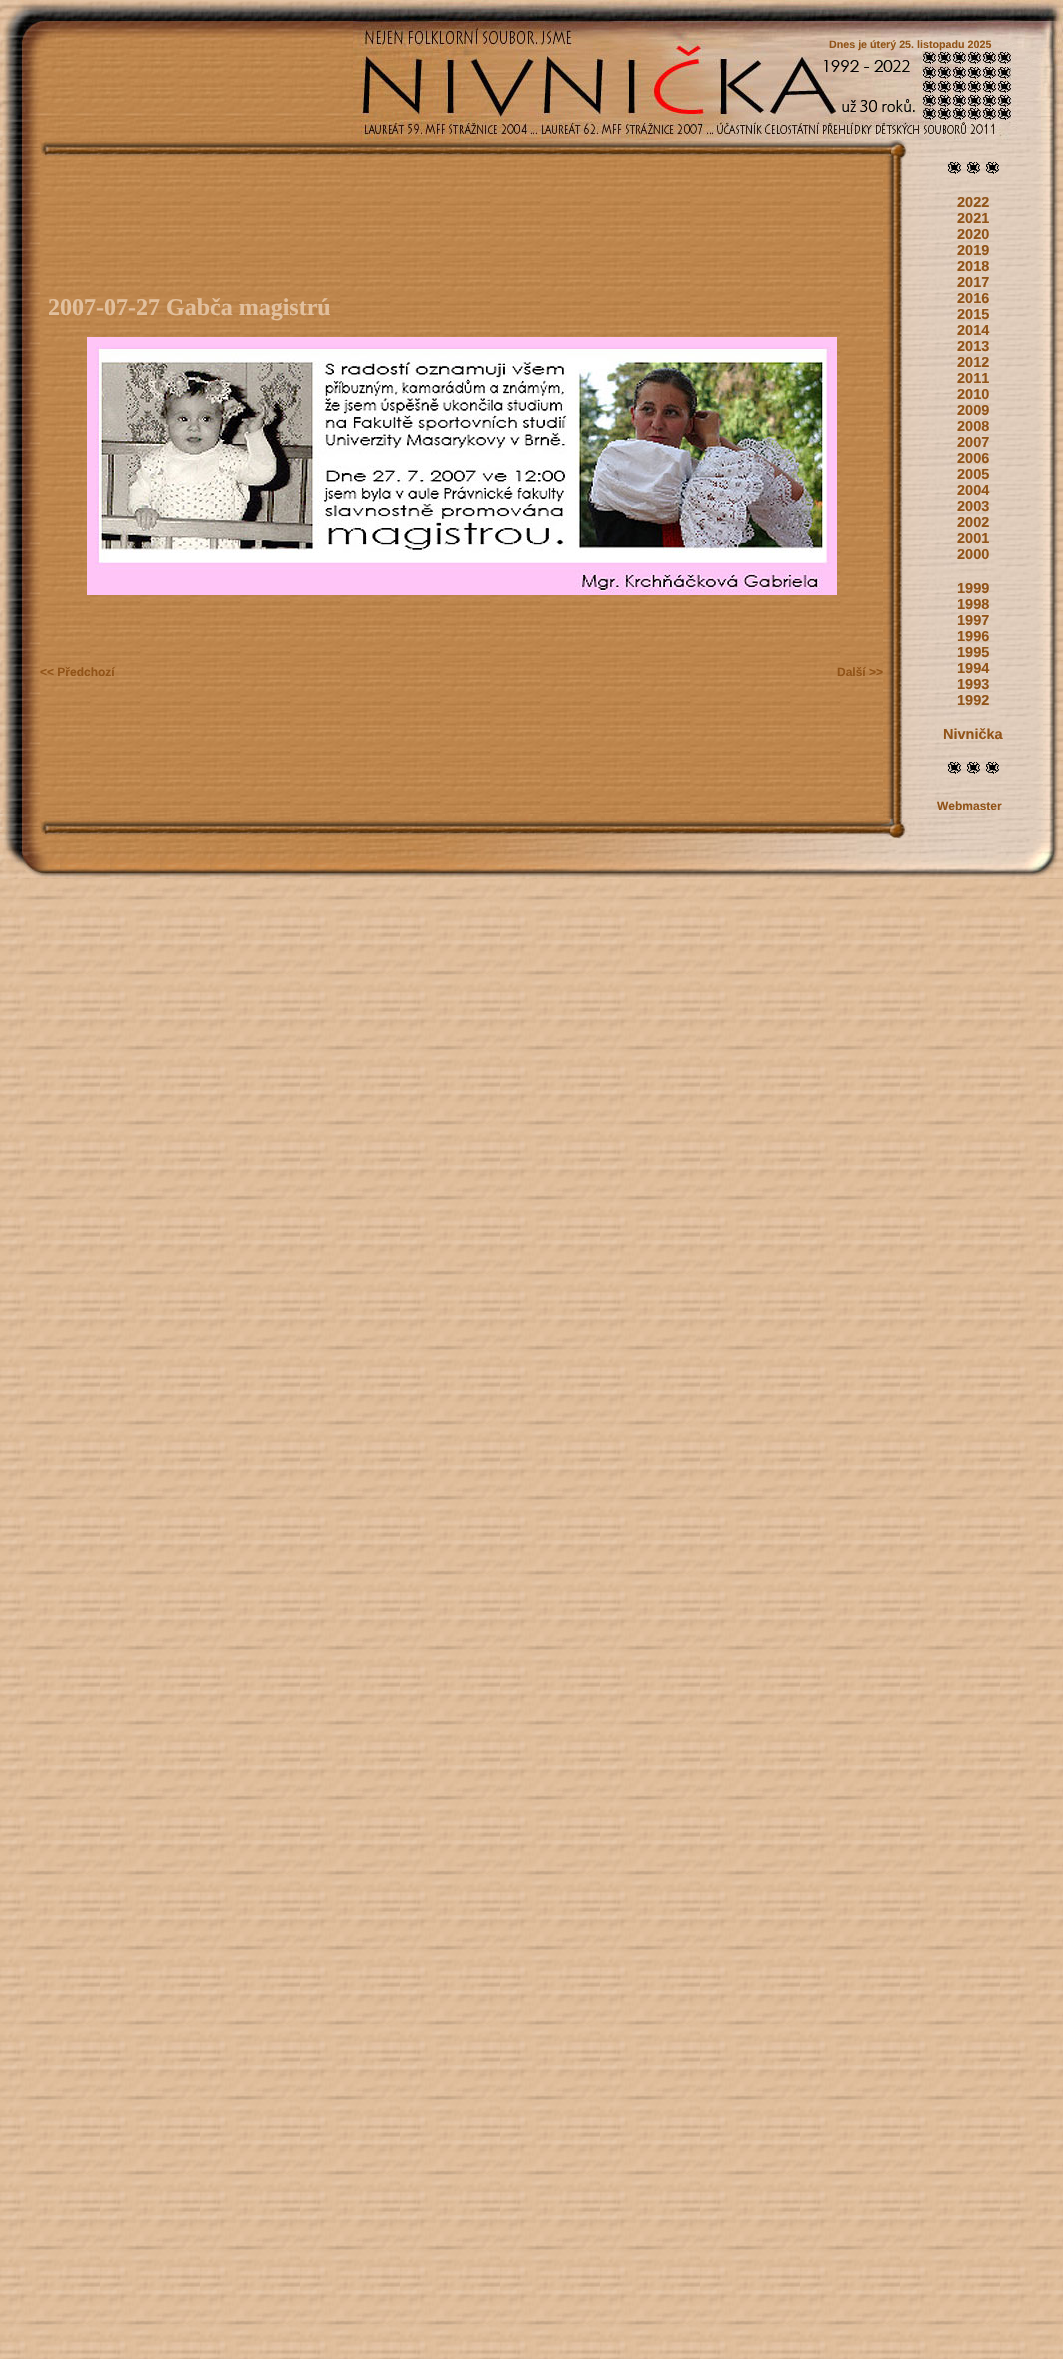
#include "include/core/SkBlurTypes.h"
#include "include/core/SkCanvas.h"
#include "include/core/SkData.h"
#include "include/core/SkFont.h"
#include "include/core/SkFontMgr.h"
#include "include/core/SkImage.h"
#include "include/core/SkMaskFilter.h"
#include "include/core/SkPaint.h"
#include "include/core/SkPathBuilder.h"
#include "include/core/SkTextBlob.h"
#include "include/effects/SkDashPathEffect.h"
#include "include/effects/SkGradientShader.h"
#include "include/utils/SkParsePath.h"

extern sk_sp<SkFontMgr> fontMgr;

void draw(SkCanvas* canvas) {
  SkPaint p;
  p.setAntiAlias(true);
  canvas->clear(SK_ColorWHITE);
  canvas->drawImageRect(SkImages::DeferredFromEncodedData(SkData::MakeFromFileName("images/1.png")), SkRect::MakeLTRB(0, 879, 1063, 2359), SkSamplingOptions());
  canvas->drawImageRect(SkImages::DeferredFromEncodedData(SkData::MakeFromFileName("images/2.png")), SkRect::MakeLTRB(0, 0, 60, 140), SkSamplingOptions());
  canvas->drawImageRect(SkImages::DeferredFromEncodedData(SkData::MakeFromFileName("images/3.png")), SkRect::MakeLTRB(60, 0, 353, 140), SkSamplingOptions());
  canvas->drawImageRect(SkImages::DeferredFromEncodedData(SkData::MakeFromFileName("images/4.png")), SkRect::MakeLTRB(353, 0, 1063, 140), SkSamplingOptions());
  canvas->drawImageRect(SkImages::DeferredFromEncodedData(SkData::MakeFromFileName("images/5.png")), SkRect::MakeLTRB(0, 140, 40, 160), SkSamplingOptions());
  canvas->drawImageRect(SkImages::DeferredFromEncodedData(SkData::MakeFromFileName("images/6.png")), SkRect::MakeLTRB(0, 148, 40, 153), SkSamplingOptions());
  canvas->drawImageRect(SkImages::DeferredFromEncodedData(SkData::MakeFromFileName("images/7.png")), SkRect::MakeLTRB(60, 140, 353, 160), SkSamplingOptions());
  canvas->drawImageRect(SkImages::DeferredFromEncodedData(SkData::MakeFromFileName("images/8.png")), SkRect::MakeLTRB(40, 140, 60, 160), SkSamplingOptions());
  canvas->drawImageRect(SkImages::DeferredFromEncodedData(SkData::MakeFromFileName("images/9.png")), SkRect::MakeLTRB(353, 140, 1063, 160), SkSamplingOptions());
  canvas->drawImageRect(SkImages::DeferredFromEncodedData(SkData::MakeFromFileName("images/10.png")), SkRect::MakeLTRB(0, 160, 40, 814), SkSamplingOptions());
  canvas->drawImageRect(SkImages::DeferredFromEncodedData(SkData::MakeFromFileName("images/11.png")), SkRect::MakeLTRB(40, 160, 883, 814), SkSamplingOptions());
  canvas->drawImageRect(SkImages::DeferredFromEncodedData(SkData::MakeFromFileName("images/12.png")), SkRect::MakeLTRB(87, 337, 837, 595), SkSamplingOptions());
  canvas->drawImageRect(SkImages::DeferredFromEncodedData(SkData::MakeFromFileName("images/13.png")), SkRect::MakeLTRB(883, 160, 903, 814), SkSamplingOptions());
  canvas->drawImageRect(SkImages::DeferredFromEncodedData(SkData::MakeFromFileName("images/14.png")), SkRect::MakeLTRB(903, 160, 1043, 814), SkSamplingOptions());
  canvas->drawImageRect(SkImages::DeferredFromEncodedData(SkData::MakeFromFileName("images/15.png")), SkRect::MakeLTRB(948, 162, 961, 174), SkSamplingOptions());
  canvas->drawImageRect(SkImages::DeferredFromEncodedData(SkData::MakeFromFileName("images/16.png")), SkRect::MakeLTRB(967, 162, 980, 174), SkSamplingOptions());
  canvas->drawImageRect(SkImages::DeferredFromEncodedData(SkData::MakeFromFileName("images/17.png")), SkRect::MakeLTRB(986, 162, 999, 174), SkSamplingOptions());
  canvas->drawImageRect(SkImages::DeferredFromEncodedData(SkData::MakeFromFileName("images/15.png")), SkRect::MakeLTRB(948, 762, 961, 774), SkSamplingOptions());
  canvas->drawImageRect(SkImages::DeferredFromEncodedData(SkData::MakeFromFileName("images/16.png")), SkRect::MakeLTRB(967, 762, 980, 774), SkSamplingOptions());
  canvas->drawImageRect(SkImages::DeferredFromEncodedData(SkData::MakeFromFileName("images/17.png")), SkRect::MakeLTRB(986, 762, 999, 774), SkSamplingOptions());
  canvas->drawImageRect(SkImages::DeferredFromEncodedData(SkData::MakeFromFileName("images/18.png")), SkRect::MakeLTRB(1043, 160, 1063, 814), SkSamplingOptions());
  canvas->drawImageRect(SkImages::DeferredFromEncodedData(SkData::MakeFromFileName("images/6.png")), SkRect::MakeLTRB(0, 814, 40, 819), SkSamplingOptions());
  canvas->drawImageRect(SkImages::DeferredFromEncodedData(SkData::MakeFromFileName("images/19.png")), SkRect::MakeLTRB(40, 814, 335, 819), SkSamplingOptions());
  canvas->drawImageRect(SkImages::DeferredFromEncodedData(SkData::MakeFromFileName("images/20.png")), SkRect::MakeLTRB(335, 814, 883, 819), SkSamplingOptions());
  canvas->drawImageRect(SkImages::DeferredFromEncodedData(SkData::MakeFromFileName("images/21.png")), SkRect::MakeLTRB(883, 814, 886, 819), SkSamplingOptions());
  canvas->drawImageRect(SkImages::DeferredFromEncodedData(SkData::MakeFromFileName("images/22.png")), SkRect::MakeLTRB(886, 814, 903, 819), SkSamplingOptions());
  canvas->drawImageRect(SkImages::DeferredFromEncodedData(SkData::MakeFromFileName("images/23.png")), SkRect::MakeLTRB(903, 814, 1043, 819), SkSamplingOptions());
  canvas->drawImageRect(SkImages::DeferredFromEncodedData(SkData::MakeFromFileName("images/24.png")), SkRect::MakeLTRB(910, 815, 1043, 819), SkSamplingOptions());
  canvas->drawImageRect(SkImages::DeferredFromEncodedData(SkData::MakeFromFileName("images/25.png")), SkRect::MakeLTRB(1043, 814, 1063, 819), SkSamplingOptions());
  canvas->drawImageRect(SkImages::DeferredFromEncodedData(SkData::MakeFromFileName("images/5.png")), SkRect::MakeLTRB(0, 819, 40, 839), SkSamplingOptions());
  canvas->drawImageRect(SkImages::DeferredFromEncodedData(SkData::MakeFromFileName("images/6.png")), SkRect::MakeLTRB(0, 827, 40, 832), SkSamplingOptions());
  canvas->drawImageRect(SkImages::DeferredFromEncodedData(SkData::MakeFromFileName("images/7.png")), SkRect::MakeLTRB(60, 819, 353, 839), SkSamplingOptions());
  canvas->drawImageRect(SkImages::DeferredFromEncodedData(SkData::MakeFromFileName("images/8.png")), SkRect::MakeLTRB(40, 819, 60, 839), SkSamplingOptions());
  canvas->drawImageRect(SkImages::DeferredFromEncodedData(SkData::MakeFromFileName("images/26.png")), SkRect::MakeLTRB(353, 819, 1063, 839), SkSamplingOptions());
  canvas->drawImageRect(SkImages::DeferredFromEncodedData(SkData::MakeFromFileName("images/27.png")), SkRect::MakeLTRB(0, 839, 60, 879), SkSamplingOptions());
  canvas->drawImageRect(SkImages::DeferredFromEncodedData(SkData::MakeFromFileName("images/28.png")), SkRect::MakeLTRB(60, 839, 353, 879), SkSamplingOptions());
  canvas->drawImageRect(SkImages::DeferredFromEncodedData(SkData::MakeFromFileName("images/29.png")), SkRect::MakeLTRB(353, 839, 1063, 879), SkSamplingOptions());
  SkFont font1(fontMgr->matchFamilyStyle("Liberation Sans", SkFontStyle::Bold()), 10.7f);
  font1.setSubpixel(true);
  p.setColor(SkColorSetRGB(145, 83, 23));
  canvas->drawString("Dnes je úterý 25. listopadu 2025", 829, 48, font1, p);
  SkFont font2(fontMgr->matchFamilyStyle("Liberation Serif", SkFontStyle::Bold()), 24);
  font2.setSubpixel(true);
  p.setColor(SkColorSetRGB(226, 192, 158));
  canvas->drawString("2007-07-27 Gabča magistrú", 48, 315, font2, p);
  SkFont font3(fontMgr->matchFamilyStyle("Liberation Sans", SkFontStyle::Bold()), 12);
  font3.setSubpixel(true);
  p.setColor(SkColorSetRGB(145, 83, 23));
  canvas->drawString("<< Předchozí", 40, 676, font3, p);
  canvas->drawString("Další >>", 837, 676, font3, p);
  SkFont font4(fontMgr->matchFamilyStyle("Liberation Sans", SkFontStyle::Bold()), 14.5f);
  font4.setSubpixel(true);
  canvas->drawString("2022", 957, 207, font4, p);
  canvas->drawString("2021", 957, 223, font4, p);
  canvas->drawString("2020", 957, 239, font4, p);
  canvas->drawString("2019", 957, 255, font4, p);
  canvas->drawString("2018", 957, 271, font4, p);
  canvas->drawString("2017", 957, 287, font4, p);
  canvas->drawString("2016", 957, 303, font4, p);
  canvas->drawString("2015", 957, 319, font4, p);
  canvas->drawString("2014", 957, 335, font4, p);
  canvas->drawString("2013", 957, 351, font4, p);
  canvas->drawString("2012", 957, 367, font4, p);
  canvas->drawString("2011", 957, 383, font4, p);
  canvas->drawString("2010", 957, 399, font4, p);
  canvas->drawString("2009", 957, 415, font4, p);
  canvas->drawString("2008", 957, 431, font4, p);
  canvas->drawString("2007", 957, 447, font4, p);
  canvas->drawString("2006", 957, 463, font4, p);
  canvas->drawString("2005", 957, 479, font4, p);
  canvas->drawString("2004", 957, 495, font4, p);
  canvas->drawString("2003", 957, 511, font4, p);
  canvas->drawString("2002", 957, 527, font4, p);
  canvas->drawString("2001", 957, 543, font4, p);
  canvas->drawString("2000", 957, 559, font4, p);
  canvas->drawString("1999", 957, 593, font4, p);
  canvas->drawString("1998", 957, 609, font4, p);
  canvas->drawString("1997", 957, 625, font4, p);
  canvas->drawString("1996", 957, 641, font4, p);
  canvas->drawString("1995", 957, 657, font4, p);
  canvas->drawString("1994", 957, 673, font4, p);
  canvas->drawString("1993", 957, 689, font4, p);
  canvas->drawString("1992", 957, 705, font4, p);
  canvas->drawString("Nivnička", 943, 739, font4, p);
  canvas->drawString("Webmaster", 937, 810, font3, p);
}
